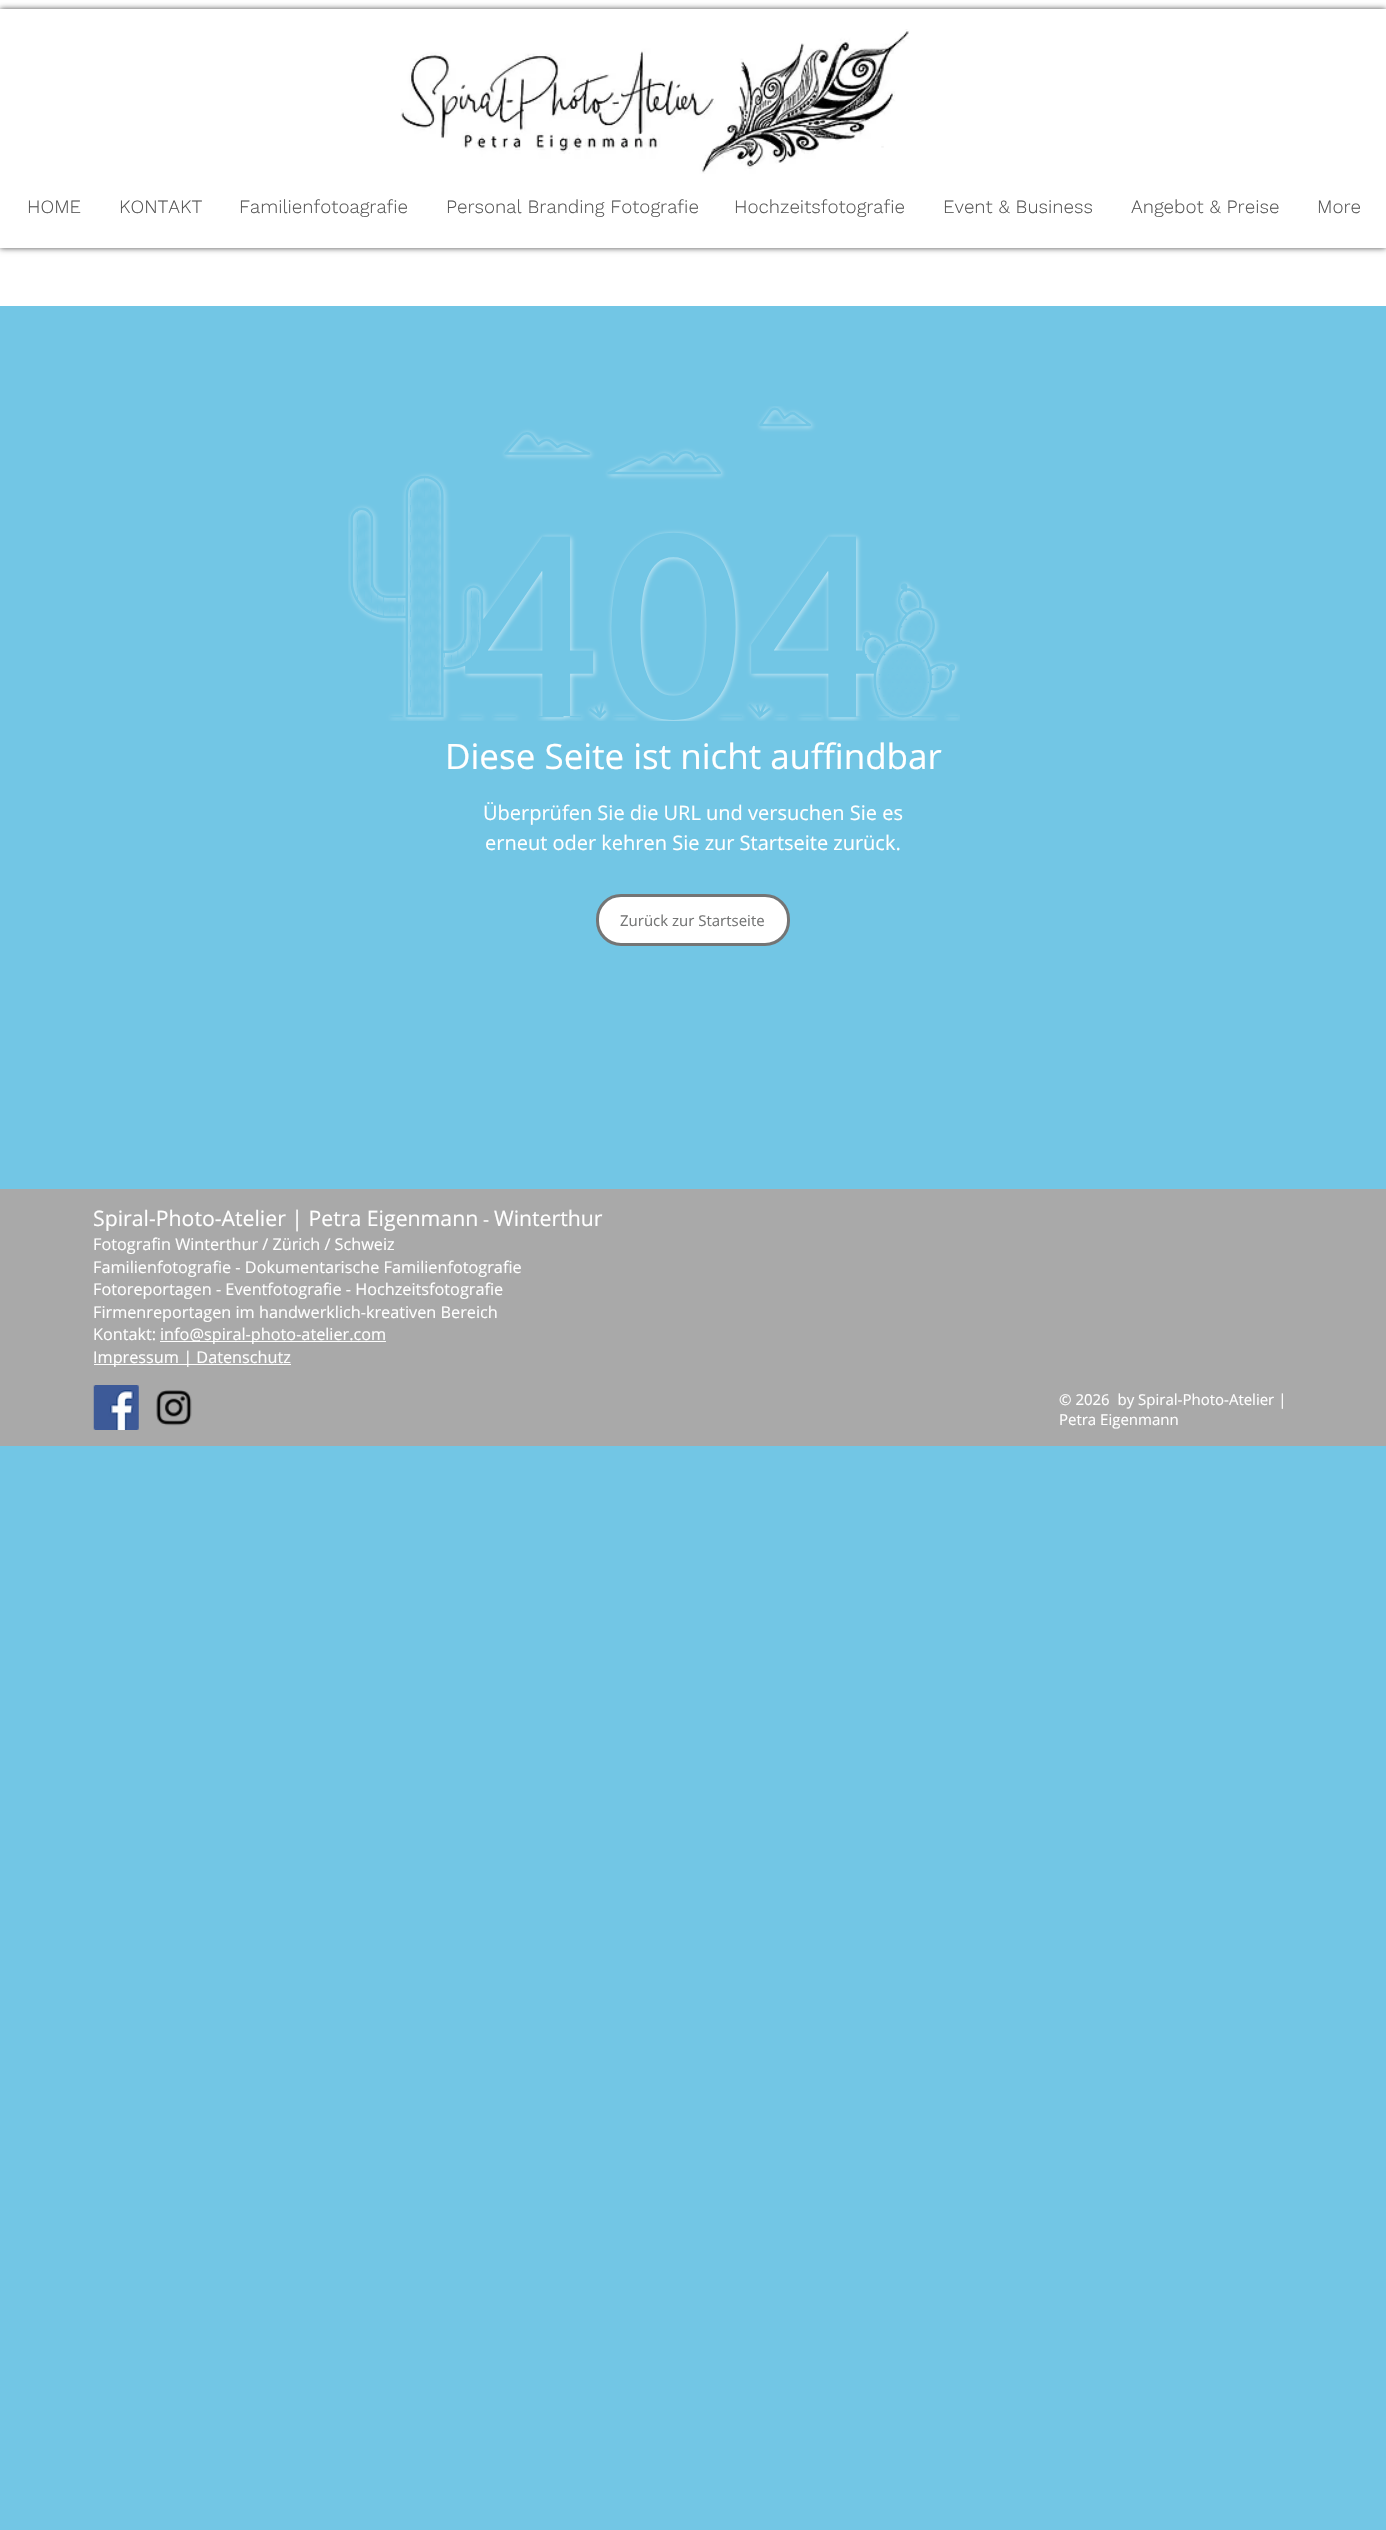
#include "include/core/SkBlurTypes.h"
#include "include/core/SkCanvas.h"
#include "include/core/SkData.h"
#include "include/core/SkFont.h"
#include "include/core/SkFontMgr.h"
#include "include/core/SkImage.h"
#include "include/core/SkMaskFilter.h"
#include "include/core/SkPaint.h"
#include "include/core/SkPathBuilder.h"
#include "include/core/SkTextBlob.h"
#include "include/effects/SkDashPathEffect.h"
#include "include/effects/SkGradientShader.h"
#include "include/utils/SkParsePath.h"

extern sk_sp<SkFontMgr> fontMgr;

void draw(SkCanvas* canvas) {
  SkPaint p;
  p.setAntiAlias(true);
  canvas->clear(SkColorSetRGB(114, 198, 229));
  p.setColor(SK_ColorWHITE);
  canvas->drawRect(SkRect::MakeLTRB(0, 0, 1386, 306), p);
  p.setColor(SkColorSetARGB(179, 0, 0, 0));
  p.setMaskFilter(SkMaskFilter::MakeBlur(kNormal_SkBlurStyle, 3));
  canvas->drawRect(SkRect::MakeLTRB(0, 9, 1386, 248), p);
  p.setMaskFilter(nullptr);
  p.setColor(SK_ColorWHITE);
  canvas->drawRect(SkRect::MakeLTRB(0, 9, 1386, 248), p);
  canvas->drawImageRect(SkImages::DeferredFromEncodedData(SkData::MakeFromFileName("images/1.png")), SkRect::MakeLTRB(400, 29, 910, 174), SkSamplingOptions());
  canvas->drawImageRect(SkImages::DeferredFromEncodedData(SkData::MakeFromFileName("images/2.png")), SkRect::MakeLTRB(348, 406, 960, 721), SkSamplingOptions());
  canvas->drawRoundRect(SkRect::MakeLTRB(597.5f, 895.5f, 788.5f, 944.5f), 23.5f, 23.5f, p);
  p.setStyle(SkPaint::kStroke_Style);
  p.setStrokeWidth(3);
  p.setColor(SkColorSetRGB(116, 117, 117));
  canvas->drawRoundRect(SkRect::MakeLTRB(597.5f, 895.5f, 788.5f, 944.5f), 23.5f, 23.5f, p);
  p.setStyle(SkPaint::kFill_Style);
  p.setColor(SkColorSetRGB(169, 169, 169));
  canvas->drawRect(SkRect::MakeLTRB(0, 1189, 1386, 1446), p);
  p.setColor(SK_ColorWHITE);
  canvas->drawRect(SkRect::MakeLTRB(160, 1341, 386, 1342), p);
  canvas->drawRect(SkRect::MakeLTRB(94, 1364, 291, 1365), p);
  canvas->drawImageRect(SkImages::DeferredFromEncodedData(SkData::MakeFromFileName("images/3.png")), SkRect::MakeLTRB(93, 1385, 139, 1430), SkSamplingOptions());
  canvas->drawImageRect(SkImages::DeferredFromEncodedData(SkData::MakeFromFileName("images/4.png")), SkRect::MakeLTRB(156, 1390, 192, 1426), SkSamplingOptions());
  SkFont font1(fontMgr->matchFamilyStyle("Work Sans", SkFontStyle(300, SkFontStyle::kNormal_Width, SkFontStyle::kUpright_Slant)), 18.75f);
  font1.setSubpixel(true);
  p.setColor(SkColorSetRGB(84, 84, 84));
  canvas->drawString("HOME", 27, 213, font1, p);
  canvas->drawString("KONTAKT", 119, 213, font1, p);
  canvas->drawString("Familienfotoagrafie", 239, 213, font1, p);
  canvas->drawString("Personal Branding Fotografie", 446, 213, font1, p);
  canvas->drawString("Hochzeitsfotografie", 734, 213, font1, p);
  canvas->drawString("Event & Business", 943, 213, font1, p);
  canvas->drawString("Angebot & Preise", 1131, 213, font1, p);
  canvas->drawString("More", 1317, 213, font1, p);
  SkFont font2(fontMgr->matchFamilyStyle("Open Sans", SkFontStyle::Normal()), 35);
  font2.setSubpixel(true);
  p.setColor(SK_ColorWHITE);
  canvas->drawString("Diese Seite ist nicht auffindbar", 445, 769, font2, p);
  SkFont font3(fontMgr->matchFamilyStyle("Open Sans", SkFontStyle::Normal()), 20);
  font3.setSubpixel(true);
  canvas->drawString("Überprüfen Sie die URL und versuchen Sie es", 483, 820, font3, p);
  canvas->drawString("erneut oder kehren Sie zur Startseite zurück.", 485, 850, font3, p);
  SkFont font4(fontMgr->matchFamilyStyle("Open Sans", SkFontStyle::Normal()), 15);
  font4.setSubpixel(true);
  p.setColor(SkColorSetRGB(116, 117, 117));
  canvas->drawString("Zurück zur Startseite", 620, 926, font4, p);
  SkFont font5(fontMgr->matchFamilyStyle("Open Sans", SkFontStyle::Normal()), 21.25f);
  font5.setSubpixel(true);
  p.setColor(SK_ColorWHITE);
  canvas->drawString("Spiral-Photo-Atelier | Petra Eigenmann", 93, 1226, font5, p);
  SkFont font6(fontMgr->matchFamilyStyle("Open Sans", SkFontStyle::Normal()), 18.75f);
  font6.setSubpixel(true);
  canvas->drawString("-", 483, 1226, font6, p);
  canvas->drawString("Winterthur", 494, 1226, font5, p);
  SkFont font7(fontMgr->matchFamilyStyle("Open Sans", SkFontStyle::Normal()), 16.25f);
  font7.setSubpixel(true);
  canvas->drawString("Fotografin Winterthur / Zürich / Schweiz", 93, 1250, font7, p);
  canvas->drawString("Familienfotografie - Dokumentarische Familienfotografie", 93, 1273, font7, p);
  canvas->drawString("Fotoreportagen - Eventfotografie - Hochzeitsfotografie", 93, 1295, font7, p);
  canvas->drawString("Firmenreportagen im handwerklich-kreativen Bereich", 93, 1318, font7, p);
  canvas->drawString("Kontakt:", 93, 1340, font7, p);
  canvas->drawString("info@spiral-photo-atelier.com", 160, 1340, font7, p);
  canvas->drawString("Impressum | Datenschutz", 93, 1363, font7, p);
  canvas->drawString("© 2026  by Spiral-Photo-Atelier |", 1059, 1405, font4, p);
  canvas->drawString("Petra Eigenmann", 1059, 1425, font4, p);
}
